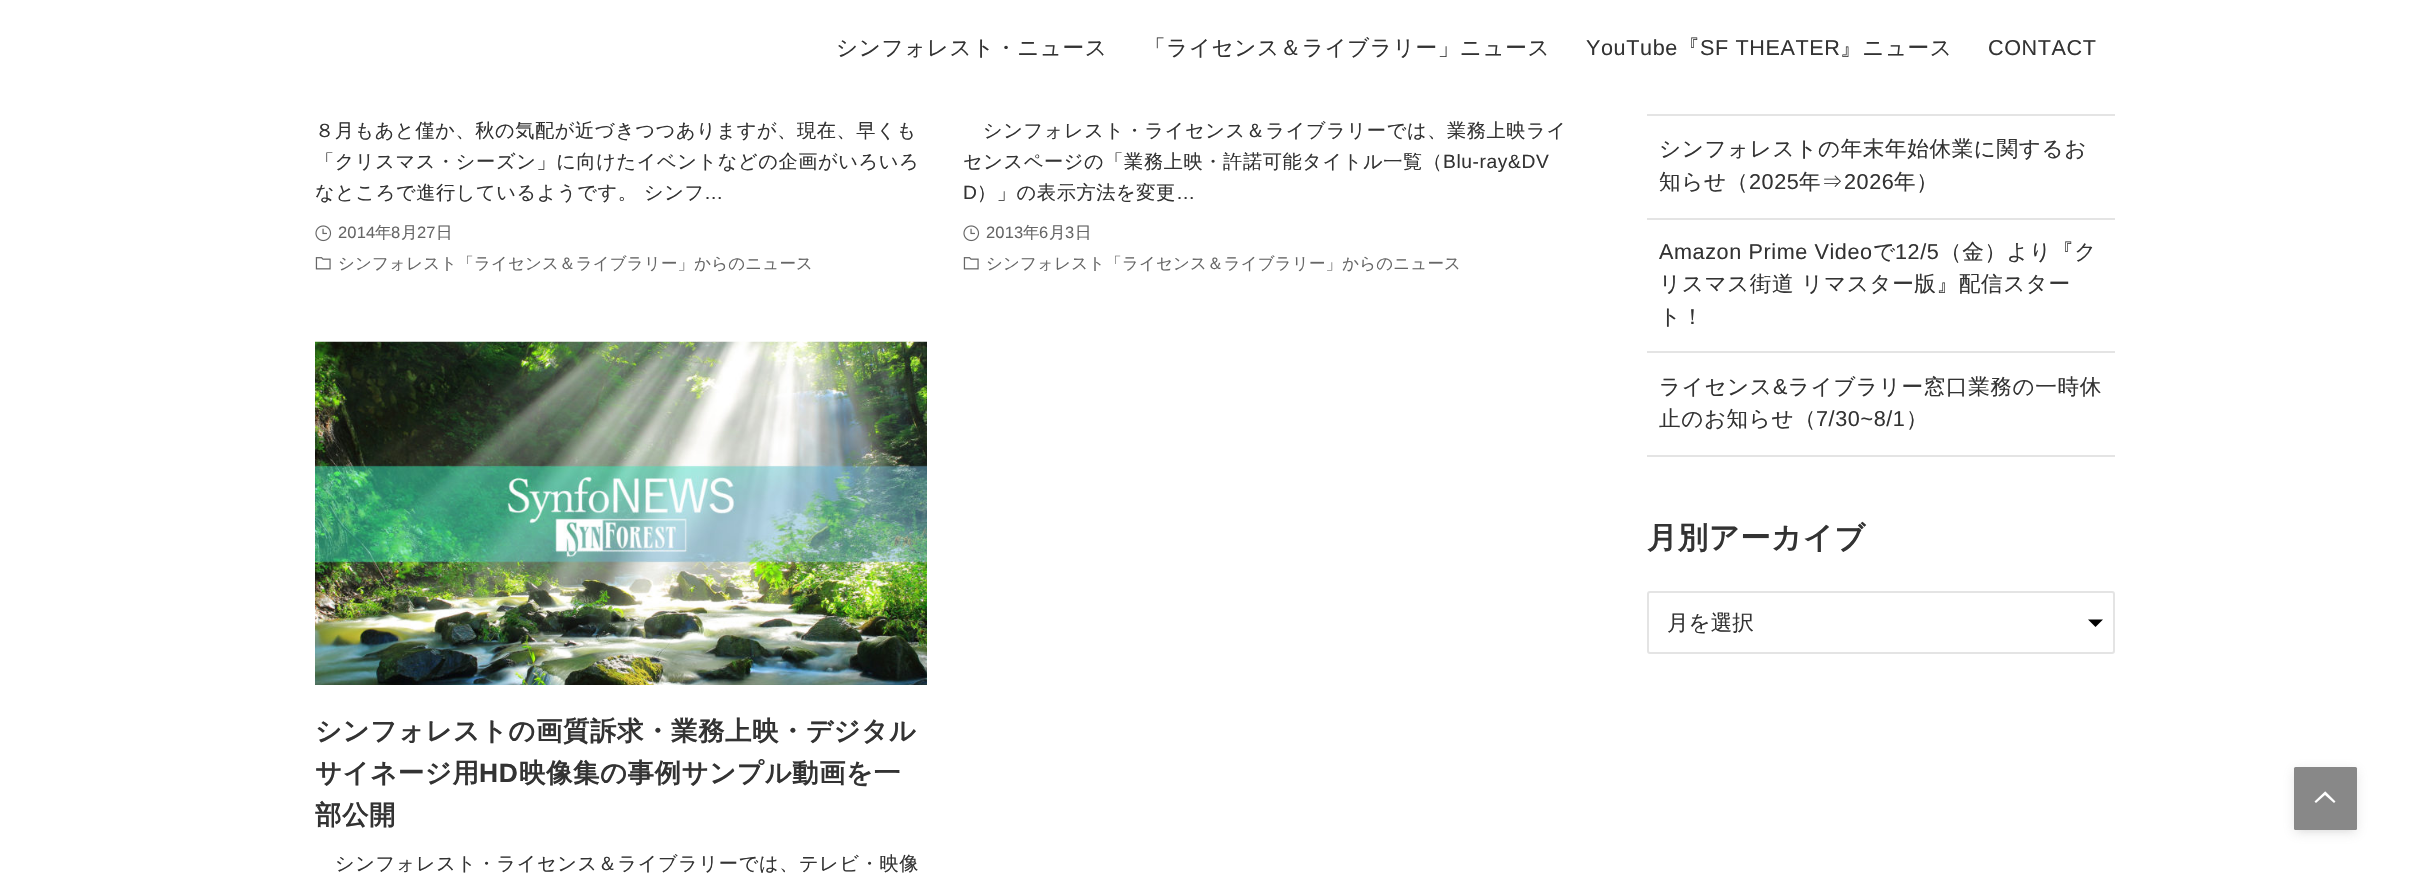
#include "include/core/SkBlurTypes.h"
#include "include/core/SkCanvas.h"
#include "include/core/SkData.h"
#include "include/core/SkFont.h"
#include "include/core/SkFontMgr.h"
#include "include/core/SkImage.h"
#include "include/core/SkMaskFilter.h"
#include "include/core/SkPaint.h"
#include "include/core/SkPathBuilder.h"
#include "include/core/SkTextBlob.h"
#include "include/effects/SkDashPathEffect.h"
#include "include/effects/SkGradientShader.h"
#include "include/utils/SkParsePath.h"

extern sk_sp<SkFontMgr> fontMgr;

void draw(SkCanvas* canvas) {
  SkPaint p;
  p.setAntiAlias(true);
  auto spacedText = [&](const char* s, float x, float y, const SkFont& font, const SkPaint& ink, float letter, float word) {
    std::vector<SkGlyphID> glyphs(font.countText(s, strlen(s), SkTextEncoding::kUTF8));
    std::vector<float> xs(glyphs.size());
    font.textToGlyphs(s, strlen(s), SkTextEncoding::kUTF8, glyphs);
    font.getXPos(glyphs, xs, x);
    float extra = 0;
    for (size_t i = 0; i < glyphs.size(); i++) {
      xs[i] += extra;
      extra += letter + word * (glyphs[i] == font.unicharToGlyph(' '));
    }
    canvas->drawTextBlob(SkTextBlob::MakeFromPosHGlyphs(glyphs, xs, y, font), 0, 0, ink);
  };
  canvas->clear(SK_ColorWHITE);
  canvas->drawImageRect(SkImages::DeferredFromEncodedData(SkData::MakeFromFileName("images/1.png")), SkRect::MakeLTRB(315, 225, 332, 242), SkSamplingOptions());
  canvas->drawImageRect(SkImages::DeferredFromEncodedData(SkData::MakeFromFileName("images/2.png")), SkRect::MakeLTRB(315, 257, 331, 270), SkSamplingOptions());
  canvas->drawImageRect(SkImages::DeferredFromEncodedData(SkData::MakeFromFileName("images/1.png")), SkRect::MakeLTRB(963, 225, 980, 242), SkSamplingOptions());
  canvas->drawImageRect(SkImages::DeferredFromEncodedData(SkData::MakeFromFileName("images/2.png")), SkRect::MakeLTRB(963, 257, 979, 270), SkSamplingOptions());
  canvas->drawImageRect(SkImages::DeferredFromEncodedData(SkData::MakeFromFileName("images/3.png")), SkRect::MakeLTRB(315, 341, 927, 685), SkSamplingOptions());
  p.setColor(SkColorSetRGB(228, 228, 228));
  canvas->drawRect(SkRect::MakeLTRB(1647, 455, 2115, 457), p);
  canvas->drawRect(SkRect::MakeLTRB(1647, 114, 2115, 116), p);
  canvas->drawRect(SkRect::MakeLTRB(1647, 218, 2115, 220), p);
  canvas->drawRect(SkRect::MakeLTRB(1647, 351, 2115, 353), p);
  p.setColor(SK_ColorBLACK);
  canvas->drawPath(SkPathBuilder().moveTo(2088, 619.5f).lineTo(2103, 619.5f).lineTo(2095.5f, 627).close().detach(), p);
  p.setStyle(SkPaint::kStroke_Style);
  p.setStrokeWidth(2);
  p.setColor(SkColorSetRGB(228, 228, 228));
  canvas->drawRoundRect(SkRect::MakeLTRB(1648, 592, 2114, 653), 2, 2, p);
  p.setStyle(SkPaint::kFill_Style);
  p.setColor(SkColorSetARGB(38, 128, 128, 128));
  p.setMaskFilter(SkMaskFilter::MakeBlur(kNormal_SkBlurStyle, 3));
  canvas->drawRect(SkRect::MakeLTRB(2300, 779, 2351, 830), p);
  p.setMaskFilter(nullptr);
  p.setColor(SkColorSetARGB(51, 128, 128, 128));
  p.setMaskFilter(SkMaskFilter::MakeBlur(kNormal_SkBlurStyle, 6));
  canvas->drawRoundRect(SkRect::MakeLTRB(2294, 770, 2357, 833), 1.5f, 1.5f, p);
  p.setMaskFilter(nullptr);
  p.setColor(SkColorSetRGB(136, 136, 136));
  canvas->drawRoundRect(SkRect::MakeLTRB(2294, 767, 2357, 830), 1.5f, 1.5f, p);
  p.setColor(SK_ColorWHITE);
  canvas->drawPath(SkPathBuilder().moveTo(2316, 803).lineTo(2314.5f, 801.5f).lineTo(2325, 791.5f).lineTo(2325.5f, 791.5f).lineTo(2335.5f, 801.5f).lineTo(2334, 803).lineTo(2325, 795).close().detach(), p);
  SkFont font1(fontMgr->matchFamilyStyle("WenQuanYi Zen Hei", SkFontStyle(500, SkFontStyle::kNormal_Width, SkFontStyle::kUpright_Slant)), 21.6f);
  font1.setSubpixel(true);
  p.setColor(SkColorSetRGB(51, 51, 51));
  spacedText("シンフォレスト・ニュース", 836, 55, font1, p, 0.6f, 0);
  spacedText("「ライセンス＆ライブラリー」ニュース", 1144, 55, font1, p, 0.6f, 0);
  SkFont font2(fontMgr->matchFamilyStyle("Liberation Sans", SkFontStyle::Normal()), 21.6f);
  font2.setSubpixel(true);
  spacedText("YouTube", 1586, 55, font2, p, 0.6f, 0);
  spacedText("『", 1678, 55, font1, p, 0.6f, 0);
  spacedText("SF THEATER", 1700, 55, font2, p, 0.6f, 0);
  spacedText("』ニュース", 1840, 55, font1, p, 0.6f, 0);
  spacedText("CONTACT", 1988, 55, font2, p, 0.6f, 0);
  SkFont font3(fontMgr->matchFamilyStyle("WenQuanYi Zen Hei", SkFontStyle(500, SkFontStyle::kNormal_Width, SkFontStyle::kUpright_Slant)), 19.2f);
  font3.setSubpixel(true);
  spacedText("８月もあと僅か、秋の気配が近づきつつありますが、現在、早くも", 315, 137, font3, p, 0.6f, 0);
  spacedText("「クリスマス・シーズン」に向けたイベントなどの企画がいろいろ", 315, 168, font3, p, 0.6f, 0);
  spacedText("なところで進行しているようです。 シンフ", 315, 199, font3, p, 0.6f, 0);
  SkFont font4(fontMgr->matchFamilyStyle("Liberation Sans", SkFontStyle::Normal()), 19.2f);
  font4.setSubpixel(true);
  spacedText("…", 704, 199, font4, p, 0.6f, 0);
  SkFont font5(fontMgr->matchFamilyStyle("Liberation Sans", SkFontStyle::Normal()), 16.5f);
  font5.setSubpixel(true);
  p.setColor(SkColorSetRGB(102, 102, 102));
  spacedText("2014", 338, 238, font5, p, 0.15f, 0);
  SkFont font6(fontMgr->matchFamilyStyle("WenQuanYi Zen Hei", SkFontStyle(500, SkFontStyle::kNormal_Width, SkFontStyle::kUpright_Slant)), 16.5f);
  font6.setSubpixel(true);
  spacedText("年", 375, 238, font6, p, 0.15f, 0);
  spacedText("8", 391, 238, font5, p, 0.15f, 0);
  spacedText("月", 401, 238, font6, p, 0.15f, 0);
  spacedText("27", 417, 238, font5, p, 0.15f, 0);
  spacedText("日", 436, 238, font6, p, 0.15f, 0);
  spacedText("シンフォレスト「ライセンス＆ライブラリー」からのニュース", 338, 269, font6, p, 0.15f, 0);
  p.setColor(SkColorSetRGB(51, 51, 51));
  spacedText("シンフォレスト・ライセンス＆ライブラリーでは、業務上映ライ", 983, 137, font3, p, 0.6f, 0);
  spacedText("センスページの「業務上映・許諾可能タイトル一覧（", 963, 168, font3, p, 0.6f, 0);
  spacedText("Blu-ray&DV", 1443, 168, font4, p, 0.6f, 0);
  spacedText("D", 963, 199, font4, p, 0.6f, 0);
  spacedText("）」の表示方法を変更", 977, 199, font3, p, 0.6f, 0);
  spacedText("…", 1176, 199, font4, p, 0.6f, 0);
  p.setColor(SkColorSetRGB(102, 102, 102));
  spacedText("2013", 986, 238, font5, p, 0.15f, 0);
  spacedText("年", 1023, 238, font6, p, 0.15f, 0);
  spacedText("6", 1039, 238, font5, p, 0.15f, 0);
  spacedText("月", 1049, 238, font6, p, 0.15f, 0);
  spacedText("3", 1065, 238, font5, p, 0.15f, 0);
  spacedText("日", 1075, 238, font6, p, 0.15f, 0);
  spacedText("シンフォレスト「ライセンス＆ライブラリー」からのニュース", 986, 269, font6, p, 0.15f, 0);
  SkFont font7(fontMgr->matchFamilyStyle("WenQuanYi Zen Hei", SkFontStyle::Bold()), 26.4f);
  font7.setSubpixel(true);
  p.setColor(SkColorSetRGB(51, 51, 51));
  spacedText("シンフォレストの画質訴求・業務上映・デジタル", 315, 740, font7, p, 0.6f, 0);
  spacedText("サイネージ用", 315, 782, font7, p, 0.6f, 0);
  SkFont font8(fontMgr->matchFamilyStyle("Liberation Sans", SkFontStyle::Bold()), 26.4f);
  font8.setSubpixel(true);
  spacedText("HD", 479, 782, font8, p, 0.6f, 0);
  spacedText("映像集の事例サンプル動画を一", 519, 782, font7, p, 0.6f, 0);
  spacedText("部公開", 315, 824, font7, p, 0.6f, 0);
  spacedText("シンフォレスト・ライセンス＆ライブラリーでは、テレビ・映像", 335, 870, font3, p, 0.6f, 0);
  spacedText("シンフォレストの年末年始休業に関するお", 1659, 156, font1, p, 0.6f, 0);
  spacedText("知らせ（", 1659, 189, font1, p, 0.6f, 0);
  spacedText("2025", 1749, 189, font2, p, 0.6f, 0);
  spacedText("年⇒", 1799, 189, font1, p, 0.6f, 0);
  spacedText("2026", 1844, 189, font2, p, 0.6f, 0);
  spacedText("年）", 1894, 189, font1, p, 0.6f, 0);
  spacedText("Amazon Prime Video", 1659, 259, font2, p, 0.6f, 0);
  spacedText("で", 1873, 259, font1, p, 0.6f, 0);
  spacedText("12/5", 1895, 259, font2, p, 0.6f, 0);
  spacedText("（金）より『ク", 1940, 259, font1, p, 0.6f, 0);
  spacedText("リスマス街道 リマスター版』配信スター", 1659, 291, font1, p, 0.6f, 0);
  spacedText("ト！", 1659, 324, font1, p, 0.6f, 0);
  spacedText("ライセンス", 1659, 394, font1, p, 0.6f, 0);
  spacedText("&", 1773, 394, font2, p, 0.6f, 0);
  spacedText("ライブラリー窓口業務の一時休", 1788, 394, font1, p, 0.6f, 0);
  spacedText("止のお知らせ（", 1659, 426, font1, p, 0.6f, 0);
  spacedText("7/30~8/1", 1816, 426, font2, p, 0.6f, 0);
  spacedText("）", 1906, 426, font1, p, 0.6f, 0);
  SkFont font9(fontMgr->matchFamilyStyle("WenQuanYi Zen Hei", SkFontStyle::Bold()), 30.25f);
  font9.setSubpixel(true);
  spacedText("月別アーカイブ", 1647, 548, font9, p, 0.6f, 0);
  canvas->drawString("月を選択", 1667, 630, font1, p);
}
